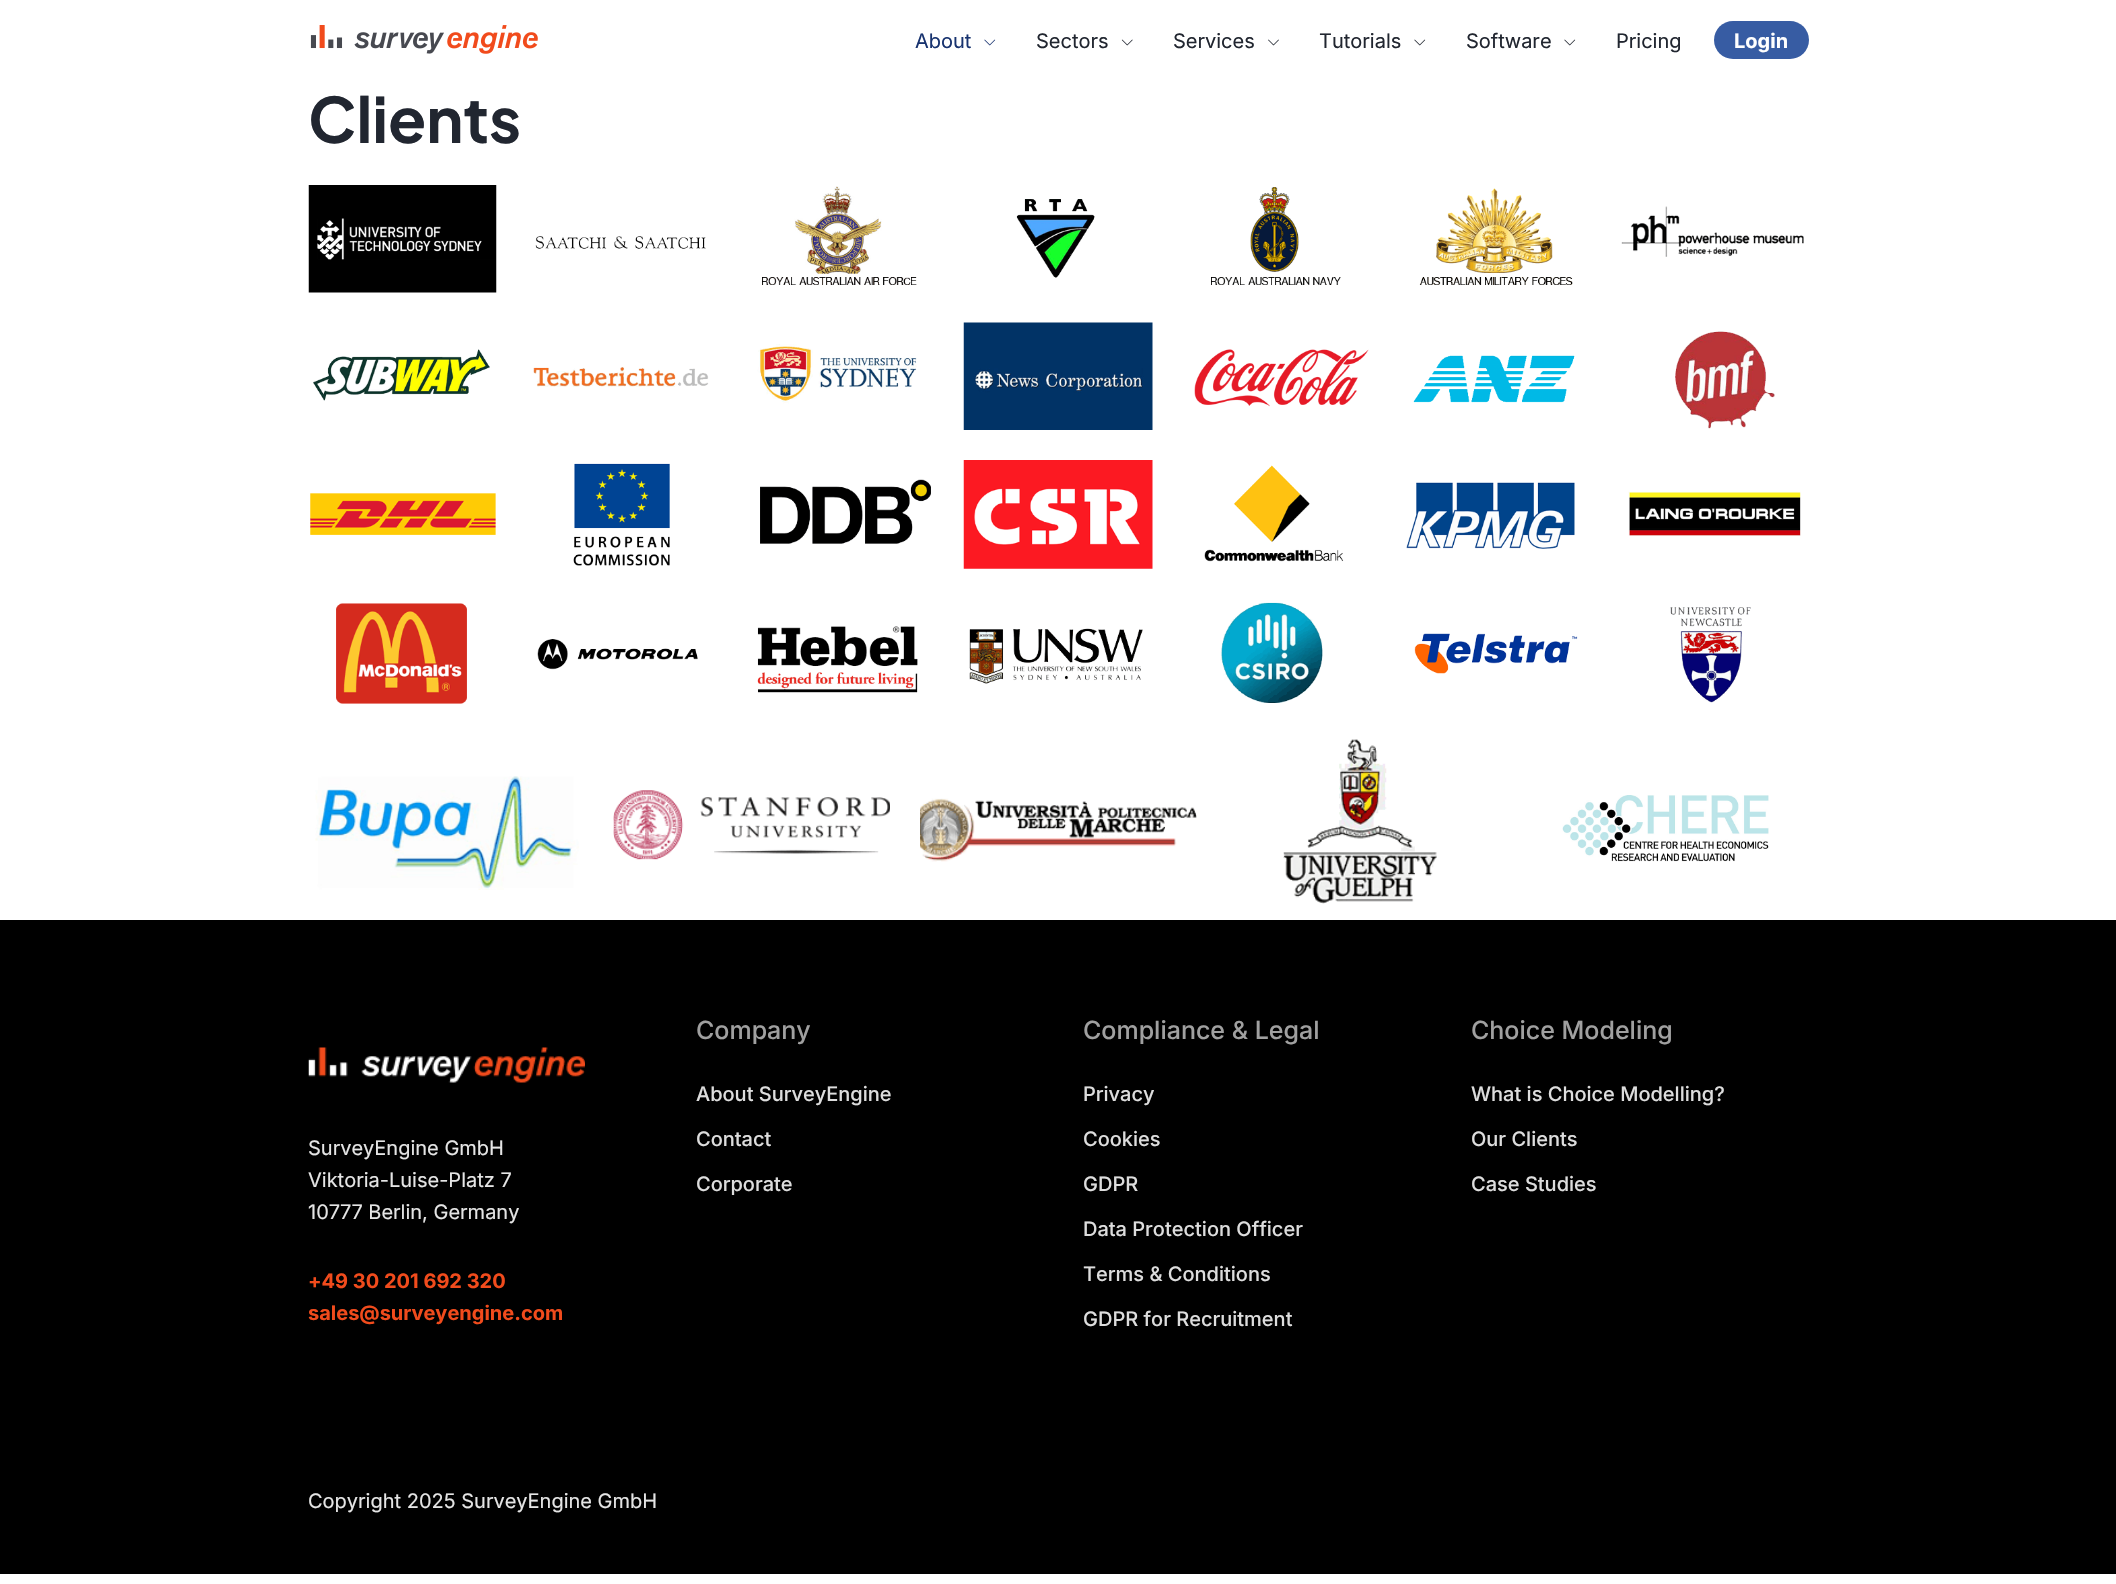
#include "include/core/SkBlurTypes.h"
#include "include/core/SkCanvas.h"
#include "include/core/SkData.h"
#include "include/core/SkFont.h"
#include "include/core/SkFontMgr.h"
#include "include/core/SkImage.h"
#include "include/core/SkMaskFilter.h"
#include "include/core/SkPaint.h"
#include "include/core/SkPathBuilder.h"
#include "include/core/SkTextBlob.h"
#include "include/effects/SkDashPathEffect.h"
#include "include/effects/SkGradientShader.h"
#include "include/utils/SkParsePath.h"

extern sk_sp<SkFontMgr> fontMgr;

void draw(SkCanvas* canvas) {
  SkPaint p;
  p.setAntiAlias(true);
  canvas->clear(SK_ColorWHITE);
  canvas->drawImageRect(SkImages::DeferredFromEncodedData(SkData::MakeFromFileName("images/1.png")), SkRect::MakeLTRB(310, 25, 538, 54), SkSamplingOptions());
  canvas->drawImageRect(SkImages::DeferredFromEncodedData(SkData::MakeFromFileName("images/2.png")), SkRect::MakeLTRB(984, 39, 996, 46), SkSamplingOptions());
  canvas->drawImageRect(SkImages::DeferredFromEncodedData(SkData::MakeFromFileName("images/3.png")), SkRect::MakeLTRB(1121, 39, 1133, 46), SkSamplingOptions());
  canvas->drawImageRect(SkImages::DeferredFromEncodedData(SkData::MakeFromFileName("images/4.png")), SkRect::MakeLTRB(1268, 39, 1279, 46), SkSamplingOptions());
  canvas->drawImageRect(SkImages::DeferredFromEncodedData(SkData::MakeFromFileName("images/5.png")), SkRect::MakeLTRB(1414, 39, 1426, 46), SkSamplingOptions());
  canvas->drawImageRect(SkImages::DeferredFromEncodedData(SkData::MakeFromFileName("images/5.png")), SkRect::MakeLTRB(1564, 39, 1576, 46), SkSamplingOptions());
  p.setColor(SkColorSetRGB(55, 92, 163));
  canvas->drawRoundRect(SkRect::MakeLTRB(1714, 21, 1809, 59), 19, 19, p);
  canvas->drawImageRect(SkImages::DeferredFromEncodedData(SkData::MakeFromFileName("images/6.png")), SkRect::MakeLTRB(308, 185, 497, 293), SkSamplingOptions());
  canvas->drawImageRect(SkImages::DeferredFromEncodedData(SkData::MakeFromFileName("images/7.png")), SkRect::MakeLTRB(535, 236, 706, 249), SkSamplingOptions());
  canvas->drawImageRect(SkImages::DeferredFromEncodedData(SkData::MakeFromFileName("images/8.png")), SkRect::MakeLTRB(762, 186, 917, 285), SkSamplingOptions());
  canvas->drawImageRect(SkImages::DeferredFromEncodedData(SkData::MakeFromFileName("images/9.png")), SkRect::MakeLTRB(1016, 199, 1095, 278), SkSamplingOptions());
  canvas->drawImageRect(SkImages::DeferredFromEncodedData(SkData::MakeFromFileName("images/10.png")), SkRect::MakeLTRB(1211, 187, 1341, 285), SkSamplingOptions());
  canvas->drawImageRect(SkImages::DeferredFromEncodedData(SkData::MakeFromFileName("images/11.png")), SkRect::MakeLTRB(1419, 188, 1573, 285), SkSamplingOptions());
  canvas->drawImageRect(SkImages::DeferredFromEncodedData(SkData::MakeFromFileName("images/12.png")), SkRect::MakeLTRB(1621, 206, 1804, 257), SkSamplingOptions());
  canvas->drawImageRect(SkImages::DeferredFromEncodedData(SkData::MakeFromFileName("images/13.png")), SkRect::MakeLTRB(313, 349, 490, 401), SkSamplingOptions());
  canvas->drawImageRect(SkImages::DeferredFromEncodedData(SkData::MakeFromFileName("images/14.png")), SkRect::MakeLTRB(533, 367, 709, 387), SkSamplingOptions());
  canvas->drawImageRect(SkImages::DeferredFromEncodedData(SkData::MakeFromFileName("images/15.png")), SkRect::MakeLTRB(757, 344, 917, 404), SkSamplingOptions());
  canvas->drawImageRect(SkImages::DeferredFromEncodedData(SkData::MakeFromFileName("images/16.png")), SkRect::MakeLTRB(963, 322, 1153, 430), SkSamplingOptions());
  canvas->drawImageRect(SkImages::DeferredFromEncodedData(SkData::MakeFromFileName("images/17.png")), SkRect::MakeLTRB(1194, 349, 1369, 407), SkSamplingOptions());
  canvas->drawImageRect(SkImages::DeferredFromEncodedData(SkData::MakeFromFileName("images/18.png")), SkRect::MakeLTRB(1413, 355, 1575, 403), SkSamplingOptions());
  canvas->drawImageRect(SkImages::DeferredFromEncodedData(SkData::MakeFromFileName("images/19.png")), SkRect::MakeLTRB(1675, 331, 1775, 429), SkSamplingOptions());
  canvas->drawImageRect(SkImages::DeferredFromEncodedData(SkData::MakeFromFileName("images/20.png")), SkRect::MakeLTRB(310, 493, 496, 535), SkSamplingOptions());
  canvas->drawImageRect(SkImages::DeferredFromEncodedData(SkData::MakeFromFileName("images/21.png")), SkRect::MakeLTRB(573, 463, 670, 566), SkSamplingOptions());
  canvas->drawImageRect(SkImages::DeferredFromEncodedData(SkData::MakeFromFileName("images/22.png")), SkRect::MakeLTRB(760, 479, 931, 544), SkSamplingOptions());
  canvas->drawImageRect(SkImages::DeferredFromEncodedData(SkData::MakeFromFileName("images/23.png")), SkRect::MakeLTRB(963, 460, 1153, 569), SkSamplingOptions());
  canvas->drawImageRect(SkImages::DeferredFromEncodedData(SkData::MakeFromFileName("images/24.png")), SkRect::MakeLTRB(1204, 465, 1344, 562), SkSamplingOptions());
  canvas->drawImageRect(SkImages::DeferredFromEncodedData(SkData::MakeFromFileName("images/25.png")), SkRect::MakeLTRB(1406, 482, 1575, 549), SkSamplingOptions());
  canvas->drawImageRect(SkImages::DeferredFromEncodedData(SkData::MakeFromFileName("images/26.png")), SkRect::MakeLTRB(1628, 491, 1801, 536), SkSamplingOptions());
  canvas->drawImageRect(SkImages::DeferredFromEncodedData(SkData::MakeFromFileName("images/27.png")), SkRect::MakeLTRB(336, 603, 467, 704), SkSamplingOptions());
  canvas->drawImageRect(SkImages::DeferredFromEncodedData(SkData::MakeFromFileName("images/28.png")), SkRect::MakeLTRB(537, 639, 698, 670), SkSamplingOptions());
  canvas->drawImageRect(SkImages::DeferredFromEncodedData(SkData::MakeFromFileName("images/29.png")), SkRect::MakeLTRB(757, 626, 918, 693), SkSamplingOptions());
  canvas->drawImageRect(SkImages::DeferredFromEncodedData(SkData::MakeFromFileName("images/30.png")), SkRect::MakeLTRB(969, 628, 1143, 684), SkSamplingOptions());
  canvas->drawImageRect(SkImages::DeferredFromEncodedData(SkData::MakeFromFileName("images/31.png")), SkRect::MakeLTRB(1220, 602, 1323, 703), SkSamplingOptions());
  canvas->drawImageRect(SkImages::DeferredFromEncodedData(SkData::MakeFromFileName("images/32.png")), SkRect::MakeLTRB(1414, 633, 1578, 674), SkSamplingOptions());
  canvas->drawImageRect(SkImages::DeferredFromEncodedData(SkData::MakeFromFileName("images/33.png")), SkRect::MakeLTRB(1670, 607, 1751, 703), SkSamplingOptions());
  canvas->drawImageRect(SkImages::DeferredFromEncodedData(SkData::MakeFromFileName("images/34.png")), SkRect::MakeLTRB(315, 776, 579, 890), SkSamplingOptions());
  canvas->drawImageRect(SkImages::DeferredFromEncodedData(SkData::MakeFromFileName("images/35.png")), SkRect::MakeLTRB(613, 790, 890, 860), SkSamplingOptions());
  canvas->drawImageRect(SkImages::DeferredFromEncodedData(SkData::MakeFromFileName("images/36.png")), SkRect::MakeLTRB(920, 798, 1197, 862), SkSamplingOptions());
  canvas->drawImageRect(SkImages::DeferredFromEncodedData(SkData::MakeFromFileName("images/37.png")), SkRect::MakeLTRB(1283, 739, 1437, 904), SkSamplingOptions());
  canvas->drawImageRect(SkImages::DeferredFromEncodedData(SkData::MakeFromFileName("images/38.png")), SkRect::MakeLTRB(1562, 795, 1769, 862), SkSamplingOptions());
  p.setColor(SK_ColorBLACK);
  canvas->drawRect(SkRect::MakeLTRB(0, 920, 2116, 1574), p);
  canvas->drawImageRect(SkImages::DeferredFromEncodedData(SkData::MakeFromFileName("images/39.png")), SkRect::MakeLTRB(308, 1047, 585, 1083), SkSamplingOptions());
  SkFont font1(fontMgr->matchFamilyStyle("Inter", SkFontStyle::Normal()), 20);
  font1.setSubpixel(true);
  p.setColor(SkColorSetRGB(24, 51, 111));
  canvas->drawString("About", 915, 48, font1, p);
  p.setColor(SkColorSetRGB(33, 38, 48));
  canvas->drawString("Sectors", 1036, 48, font1, p);
  canvas->drawString("Services", 1173, 48, font1, p);
  canvas->drawString("Tutorials", 1319, 48, font1, p);
  canvas->drawString("Software", 1466, 48, font1, p);
  canvas->drawString("Pricing", 1616, 48, font1, p);
  SkFont font2(fontMgr->matchFamilyStyle("Inter", SkFontStyle::Bold()), 20);
  font2.setSubpixel(true);
  p.setColor(SK_ColorWHITE);
  canvas->drawString("Login", 1734, 48, font2, p);
  SkFont font3(fontMgr->matchFamilyStyle("Plus Jakarta Sans", SkFontStyle::Bold()), 62.5f);
  font3.setSubpixel(true);
  p.setColor(SkColorSetRGB(33, 38, 48));
  canvas->drawString("Clients", 308, 143, font3, p);
  SkFont font4(fontMgr->matchFamilyStyle("Inter", SkFontStyle(500, SkFontStyle::kNormal_Width, SkFontStyle::kUpright_Slant)), 25);
  font4.setSubpixel(true);
  p.setColor(SkColorSetRGB(160, 160, 160));
  canvas->drawString("Company", 696, 1039, font4, p);
  SkFont font5(fontMgr->matchFamilyStyle("Inter", SkFontStyle(500, SkFontStyle::kNormal_Width, SkFontStyle::kUpright_Slant)), 20);
  font5.setSubpixel(true);
  p.setColor(SkColorSetRGB(221, 221, 221));
  canvas->drawString("About SurveyEngine", 696, 1101, font5, p);
  canvas->drawString("Contact", 696, 1146, font5, p);
  canvas->drawString("Corporate", 696, 1191, font5, p);
  p.setColor(SkColorSetRGB(160, 160, 160));
  canvas->drawString("Compliance & Legal", 1083, 1039, font4, p);
  p.setColor(SkColorSetRGB(221, 221, 221));
  canvas->drawString("Privacy", 1083, 1101, font5, p);
  canvas->drawString("Cookies", 1083, 1146, font5, p);
  canvas->drawString("GDPR", 1083, 1191, font5, p);
  canvas->drawString("Data Protection Officer", 1083, 1236, font5, p);
  canvas->drawString("Terms & Conditions", 1083, 1281, font5, p);
  canvas->drawString("GDPR for Recruitment", 1083, 1326, font5, p);
  p.setColor(SkColorSetRGB(160, 160, 160));
  canvas->drawString("Choice Modeling", 1471, 1039, font4, p);
  p.setColor(SkColorSetRGB(221, 221, 221));
  canvas->drawString("What is Choice Modelling?", 1471, 1101, font5, p);
  canvas->drawString("Our Clients", 1471, 1146, font5, p);
  canvas->drawString("Case Studies", 1471, 1191, font5, p);
  p.setColor(SkColorSetRGB(229, 229, 229));
  canvas->drawString("SurveyEngine GmbH", 308, 1155, font1, p);
  canvas->drawString("Viktoria-Luise-Platz 7", 308, 1187, font1, p);
  canvas->drawString("10777 Berlin, Germany", 308, 1219, font1, p);
  p.setColor(SkColorSetRGB(241, 75, 28));
  canvas->drawString("+49 30 201 692 320", 308, 1288, font2, p);
  canvas->drawString("sales@surveyengine.com", 308, 1320, font2, p);
  p.setColor(SkColorSetRGB(229, 229, 229));
  canvas->drawString("Copyright 2025 SurveyEngine GmbH", 308, 1508, font1, p);
}
